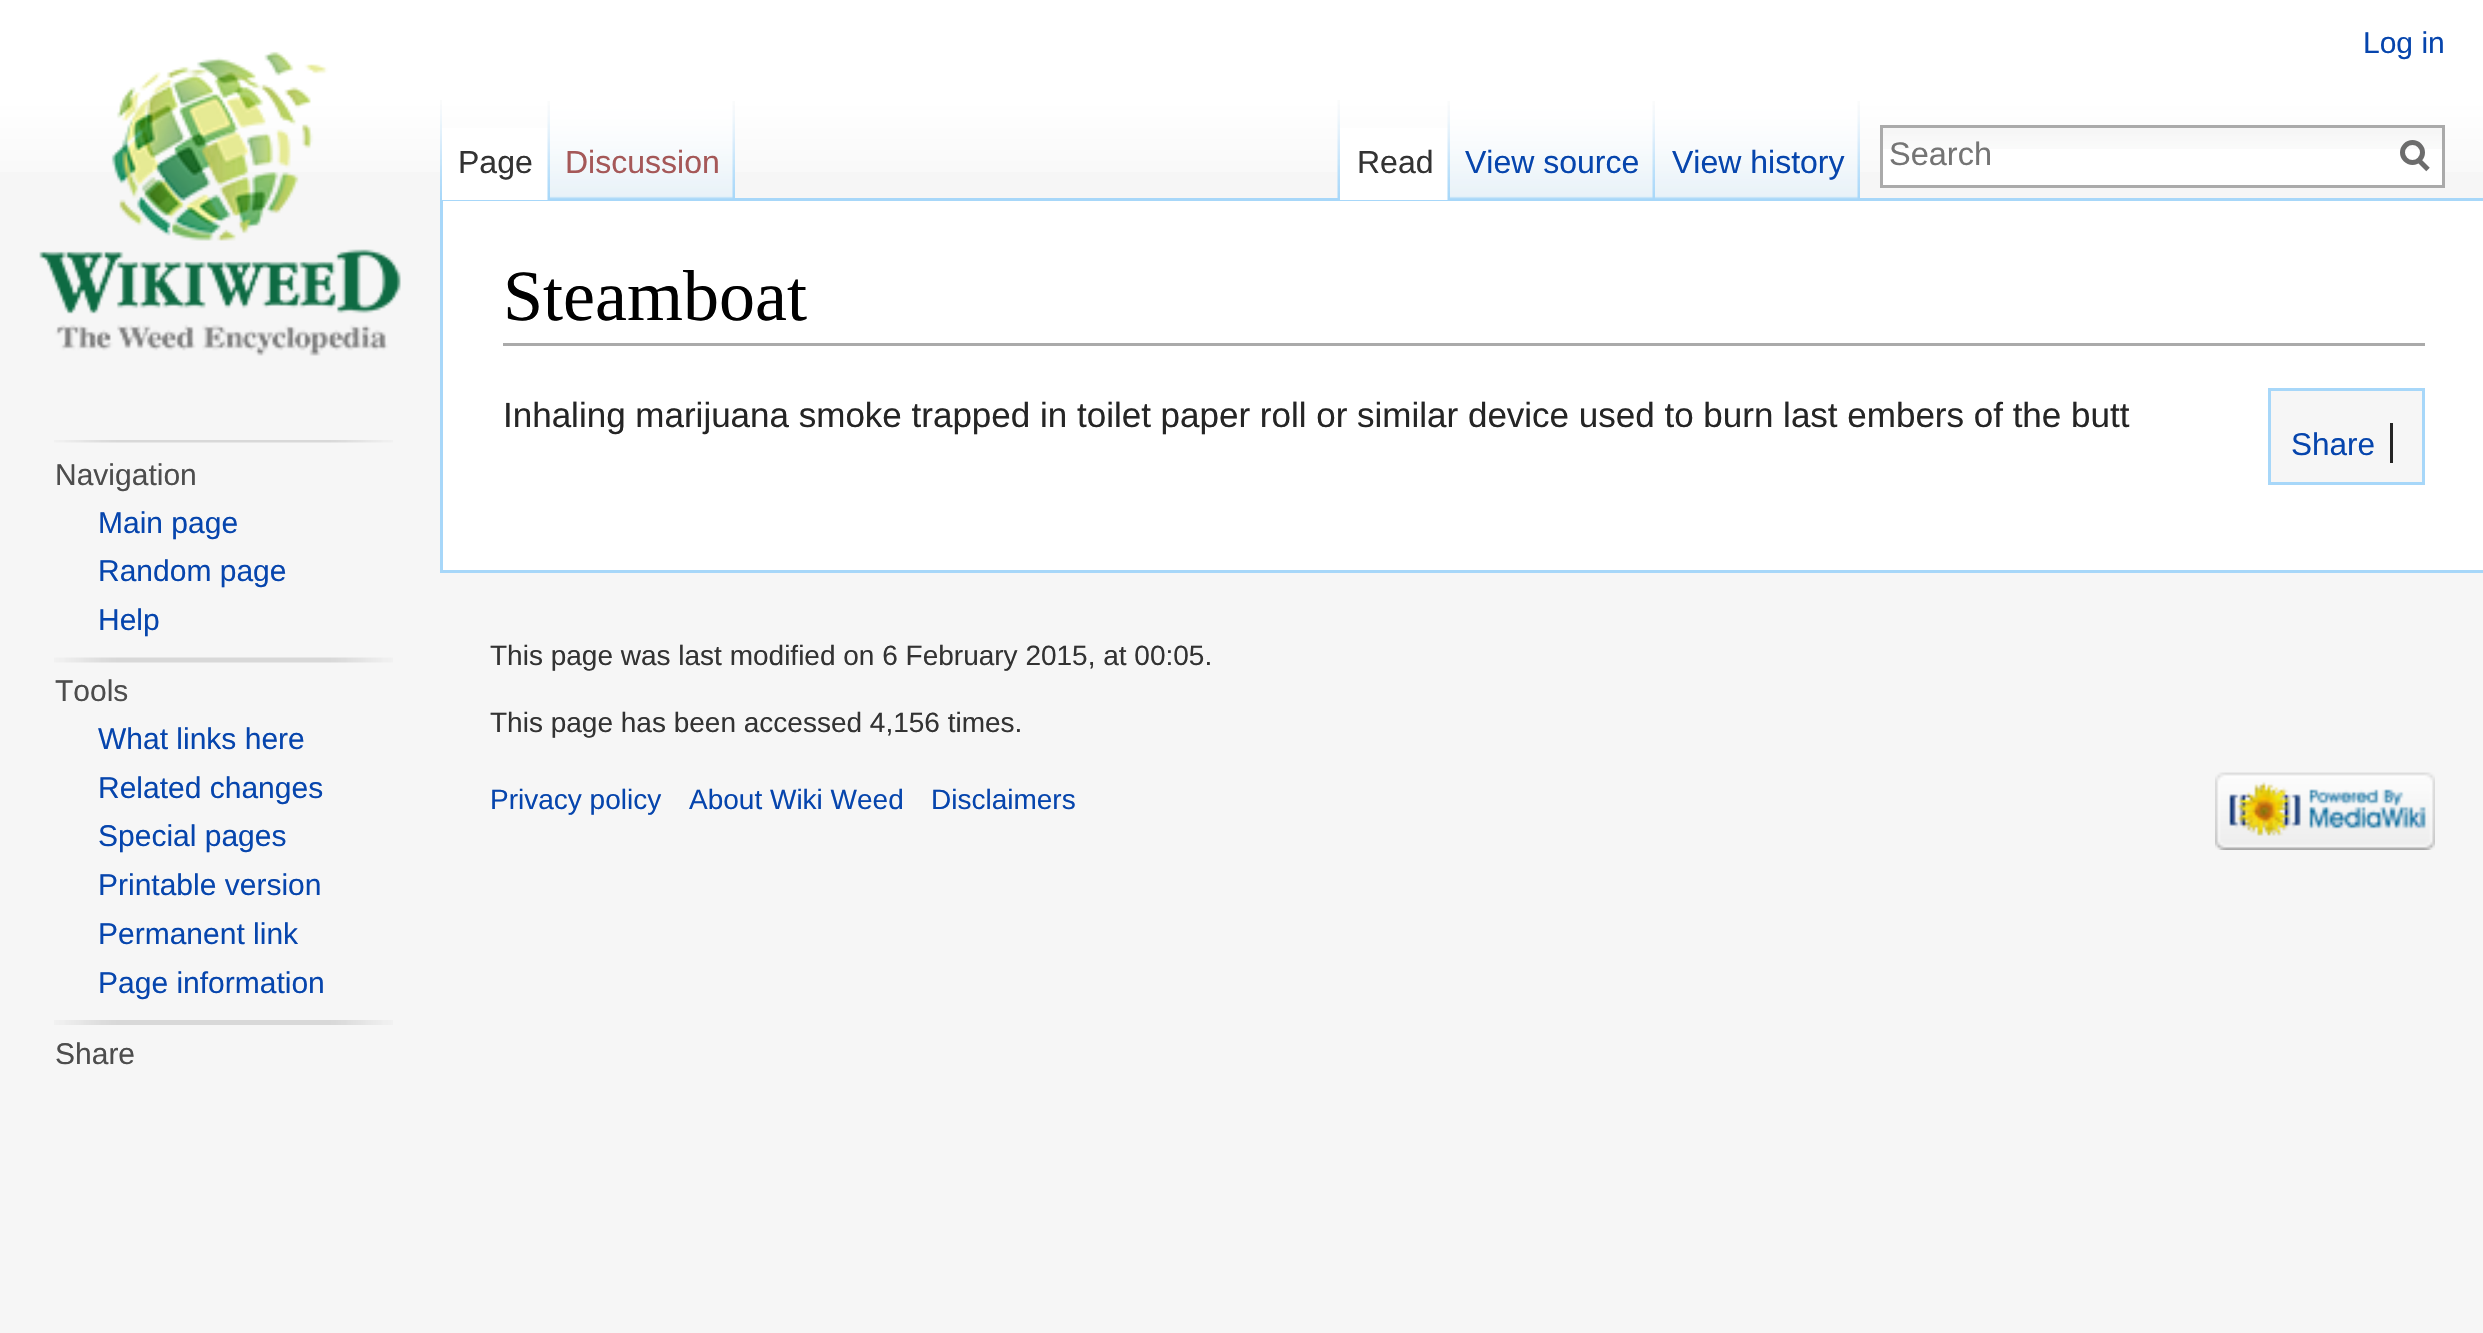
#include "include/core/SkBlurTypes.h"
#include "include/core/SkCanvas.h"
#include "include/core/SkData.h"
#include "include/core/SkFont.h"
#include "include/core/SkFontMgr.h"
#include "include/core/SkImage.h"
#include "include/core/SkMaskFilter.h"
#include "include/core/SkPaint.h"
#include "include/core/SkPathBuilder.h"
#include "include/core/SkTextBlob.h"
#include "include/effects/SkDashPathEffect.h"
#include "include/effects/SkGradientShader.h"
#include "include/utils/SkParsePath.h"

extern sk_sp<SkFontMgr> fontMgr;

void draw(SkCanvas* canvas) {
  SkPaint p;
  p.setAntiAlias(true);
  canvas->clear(SkColorSetRGB(246, 246, 246));
  {
    const SkColor colors[] = {SK_ColorWHITE, SkColorSetRGB(246, 246, 246)};
    const float stops[] = {0.5f, 1};
    const SkPoint ends[] = {{1243, 0}, {1243, 200}};
    p.setShader(SkGradientShader::MakeLinear(ends, colors, stops, 2, SkTileMode::kClamp));
    p.setAlpha(255);
  }
  canvas->drawRect(SkRect::MakeLTRB(0, 0, 2483, 172), p);
  canvas->drawImageRect(SkImages::DeferredFromEncodedData(SkData::MakeFromFileName("images/1.png")), SkRect::MakeLTRB(440, 100, 442, 198), SkSamplingOptions());
  p.setShader(nullptr);
  p.setColor(SkColorSetRGB(167, 215, 249));
  canvas->drawRect(SkRect::MakeLTRB(440, 198, 2483, 201), p);
  canvas->drawRect(SkRect::MakeLTRB(440, 570, 2483, 573), p);
  canvas->drawRect(SkRect::MakeLTRB(440, 198, 443, 573), p);
  p.setColor(SK_ColorWHITE);
  canvas->drawRect(SkRect::MakeLTRB(442, 128, 550, 200), p);
  canvas->drawImageRect(SkImages::DeferredFromEncodedData(SkData::MakeFromFileName("images/2.png")), SkRect::MakeLTRB(547, 101, 550, 200), SkSamplingOptions());
  canvas->drawImageRect(SkImages::DeferredFromEncodedData(SkData::MakeFromFileName("images/3.png")), SkRect::MakeLTRB(550, 100, 735, 200), SkSamplingOptions());
  canvas->drawImageRect(SkImages::DeferredFromEncodedData(SkData::MakeFromFileName("images/4.png")), SkRect::MakeLTRB(732, 101, 735, 199), SkSamplingOptions());
  canvas->drawImageRect(SkImages::DeferredFromEncodedData(SkData::MakeFromFileName("images/5.png")), SkRect::MakeLTRB(1337, 100, 1340, 198), SkSamplingOptions());
  canvas->drawRect(SkRect::MakeLTRB(1340, 128, 1450, 200), p);
  canvas->drawImageRect(SkImages::DeferredFromEncodedData(SkData::MakeFromFileName("images/2.png")), SkRect::MakeLTRB(1447, 101, 1450, 200), SkSamplingOptions());
  canvas->drawImageRect(SkImages::DeferredFromEncodedData(SkData::MakeFromFileName("images/6.png")), SkRect::MakeLTRB(1450, 100, 1655, 200), SkSamplingOptions());
  canvas->drawImageRect(SkImages::DeferredFromEncodedData(SkData::MakeFromFileName("images/4.png")), SkRect::MakeLTRB(1652, 101, 1655, 199), SkSamplingOptions());
  canvas->drawImageRect(SkImages::DeferredFromEncodedData(SkData::MakeFromFileName("images/6.png")), SkRect::MakeLTRB(1655, 100, 1860, 200), SkSamplingOptions());
  canvas->drawImageRect(SkImages::DeferredFromEncodedData(SkData::MakeFromFileName("images/4.png")), SkRect::MakeLTRB(1857, 101, 1860, 199), SkSamplingOptions());
  canvas->drawRect(SkRect::MakeLTRB(1883, 149, 2442, 185), p);
  canvas->drawImageRect(SkImages::DeferredFromEncodedData(SkData::MakeFromFileName("images/7.png")), SkRect::MakeLTRB(1883, 128, 2442, 149), SkSamplingOptions());
  p.setStyle(SkPaint::kStroke_Style);
  p.setStrokeWidth(3);
  p.setColor(SkColorSetRGB(170, 170, 170));
  canvas->drawRect(SkRect::MakeLTRB(1881.5f, 126.5f, 2443.5f, 186.5f), p);
  p.setStrokeWidth(5);
  p.setColor(SkColorSetRGB(108, 108, 108));
  canvas->drawPath(SkPathBuilder().moveTo(2428, 169.5f).lineTo(2418, 159.5f).detach(), p);
  canvas->drawCircle(2412.5f, 152.5f, 10, p);
  canvas->drawImageRect(SkImages::DeferredFromEncodedData(SkData::MakeFromFileName("images/8.png")), SkRect::MakeLTRB(39, 51, 401, 356), SkSamplingOptions());
  canvas->drawImageRect(SkImages::DeferredFromEncodedData(SkData::MakeFromFileName("images/9.png")), SkRect::MakeLTRB(54, 440, 393, 443), SkSamplingOptions());
  canvas->drawImageRect(SkImages::DeferredFromEncodedData(SkData::MakeFromFileName("images/10.png")), SkRect::MakeLTRB(54, 657, 393, 663), SkSamplingOptions());
  canvas->drawImageRect(SkImages::DeferredFromEncodedData(SkData::MakeFromFileName("images/11.png")), SkRect::MakeLTRB(54, 1020, 393, 1025), SkSamplingOptions());
  p.setStyle(SkPaint::kFill_Style);
  p.setColor(SK_ColorWHITE);
  canvas->drawRect(SkRect::MakeLTRB(443, 201, 2483, 570), p);
  p.setColor(SkColorSetRGB(170, 170, 170));
  canvas->drawRect(SkRect::MakeLTRB(503, 343, 2425, 346), p);
  p.setColor(SkColorSetRGB(246, 246, 246));
  canvas->drawRect(SkRect::MakeLTRB(2269.5f, 389.5f, 2423.5f, 483.5f), p);
  p.setStyle(SkPaint::kStroke_Style);
  p.setStrokeWidth(3);
  p.setColor(SkColorSetRGB(167, 215, 249));
  canvas->drawRect(SkRect::MakeLTRB(2269.5f, 389.5f, 2423.5f, 483.5f), p);
  p.setStyle(SkPaint::kFill_Style);
  p.setColor(SkColorSetRGB(37, 37, 37));
  canvas->drawRect(SkRect::MakeLTRB(2390, 423, 2393, 463), p);
  canvas->drawImageRect(SkImages::DeferredFromEncodedData(SkData::MakeFromFileName("images/12.png")), SkRect::MakeLTRB(2215, 772, 2435, 850), SkSamplingOptions());
  SkFont font1(fontMgr->matchFamilyStyle("Liberation Sans", SkFontStyle::Normal()), 30);
  font1.setSubpixel(true);
  p.setColor(SkColorSetRGB(6, 69, 173));
  canvas->drawString("Log in", 2363, 53, font1, p);
  SkFont font2(fontMgr->matchFamilyStyle("Liberation Sans", SkFontStyle::Normal()), 32);
  font2.setSubpixel(true);
  p.setColor(SkColorSetRGB(51, 51, 51));
  canvas->drawString("Page", 458, 173, font2, p);
  p.setColor(SkColorSetRGB(165, 88, 88));
  canvas->drawString("Discussion", 565, 173, font2, p);
  p.setColor(SkColorSetRGB(51, 51, 51));
  canvas->drawString("Read", 1357, 173, font2, p);
  p.setColor(SkColorSetRGB(6, 69, 173));
  canvas->drawString("View source", 1465, 173, font2, p);
  canvas->drawString("View history", 1672, 173, font2, p);
  SkFont font3(fontMgr->matchFamilyStyle("Liberation Sans", SkFontStyle::Normal()), 32.5f);
  font3.setSubpixel(true);
  p.setColor(SkColorSetRGB(117, 117, 117));
  canvas->drawString("Search", 1889, 165, font3, p);
  p.setColor(SkColorSetRGB(77, 77, 77));
  canvas->drawString("Navigation", 55, 485, font1, p);
  p.setColor(SkColorSetRGB(6, 69, 173));
  canvas->drawString("Main page", 98, 533, font1, p);
  canvas->drawString("Random page", 98, 581, font1, p);
  canvas->drawString("Help", 98, 630, font1, p);
  p.setColor(SkColorSetRGB(77, 77, 77));
  canvas->drawString("Tools", 55, 701, font1, p);
  p.setColor(SkColorSetRGB(6, 69, 173));
  canvas->drawString("What links here", 98, 749, font1, p);
  canvas->drawString("Related changes", 98, 798, font1, p);
  canvas->drawString("Special pages", 98, 846, font1, p);
  canvas->drawString("Printable version", 98, 895, font1, p);
  canvas->drawString("Permanent link", 98, 944, font1, p);
  canvas->drawString("Page information", 98, 993, font1, p);
  p.setColor(SkColorSetRGB(77, 77, 77));
  canvas->drawString("Share", 55, 1064, font1, p);
  SkFont font4(fontMgr->matchFamilyStyle("Liberation Serif", SkFontStyle::Normal()), 72);
  font4.setSubpixel(true);
  p.setColor(SK_ColorBLACK);
  canvas->drawString("Steamboat", 503, 320, font4, p);
  SkFont font5(fontMgr->matchFamilyStyle("Liberation Sans", SkFontStyle::Normal()), 35);
  font5.setSubpixel(true);
  p.setColor(SkColorSetRGB(37, 37, 37));
  canvas->drawString("Inhaling marijuana smoke trapped in toilet paper roll or similar device used to burn last embers of the butt", 503, 427, font5, p);
  SkFont font6(fontMgr->matchFamilyStyle("Liberation Sans", SkFontStyle::Normal()), 31.5f);
  font6.setSubpixel(true);
  p.setColor(SkColorSetRGB(6, 69, 173));
  canvas->drawString("Share", 2291, 455, font6, p);
  SkFont font7(fontMgr->matchFamilyStyle("Liberation Sans", SkFontStyle::Normal()), 28);
  font7.setSubpixel(true);
  p.setColor(SkColorSetRGB(51, 51, 51));
  canvas->drawString("This page was last modified on 6 February 2015, at 00:05.", 490, 665, font7, p);
  canvas->drawString("This page has been accessed 4,156 times.", 490, 732, font7, p);
  p.setColor(SkColorSetRGB(6, 69, 173));
  canvas->drawString("Privacy policy", 490, 809, font7, p);
  canvas->drawString("About Wiki Weed", 689, 809, font7, p);
  canvas->drawString("Disclaimers", 931, 809, font7, p);
}
